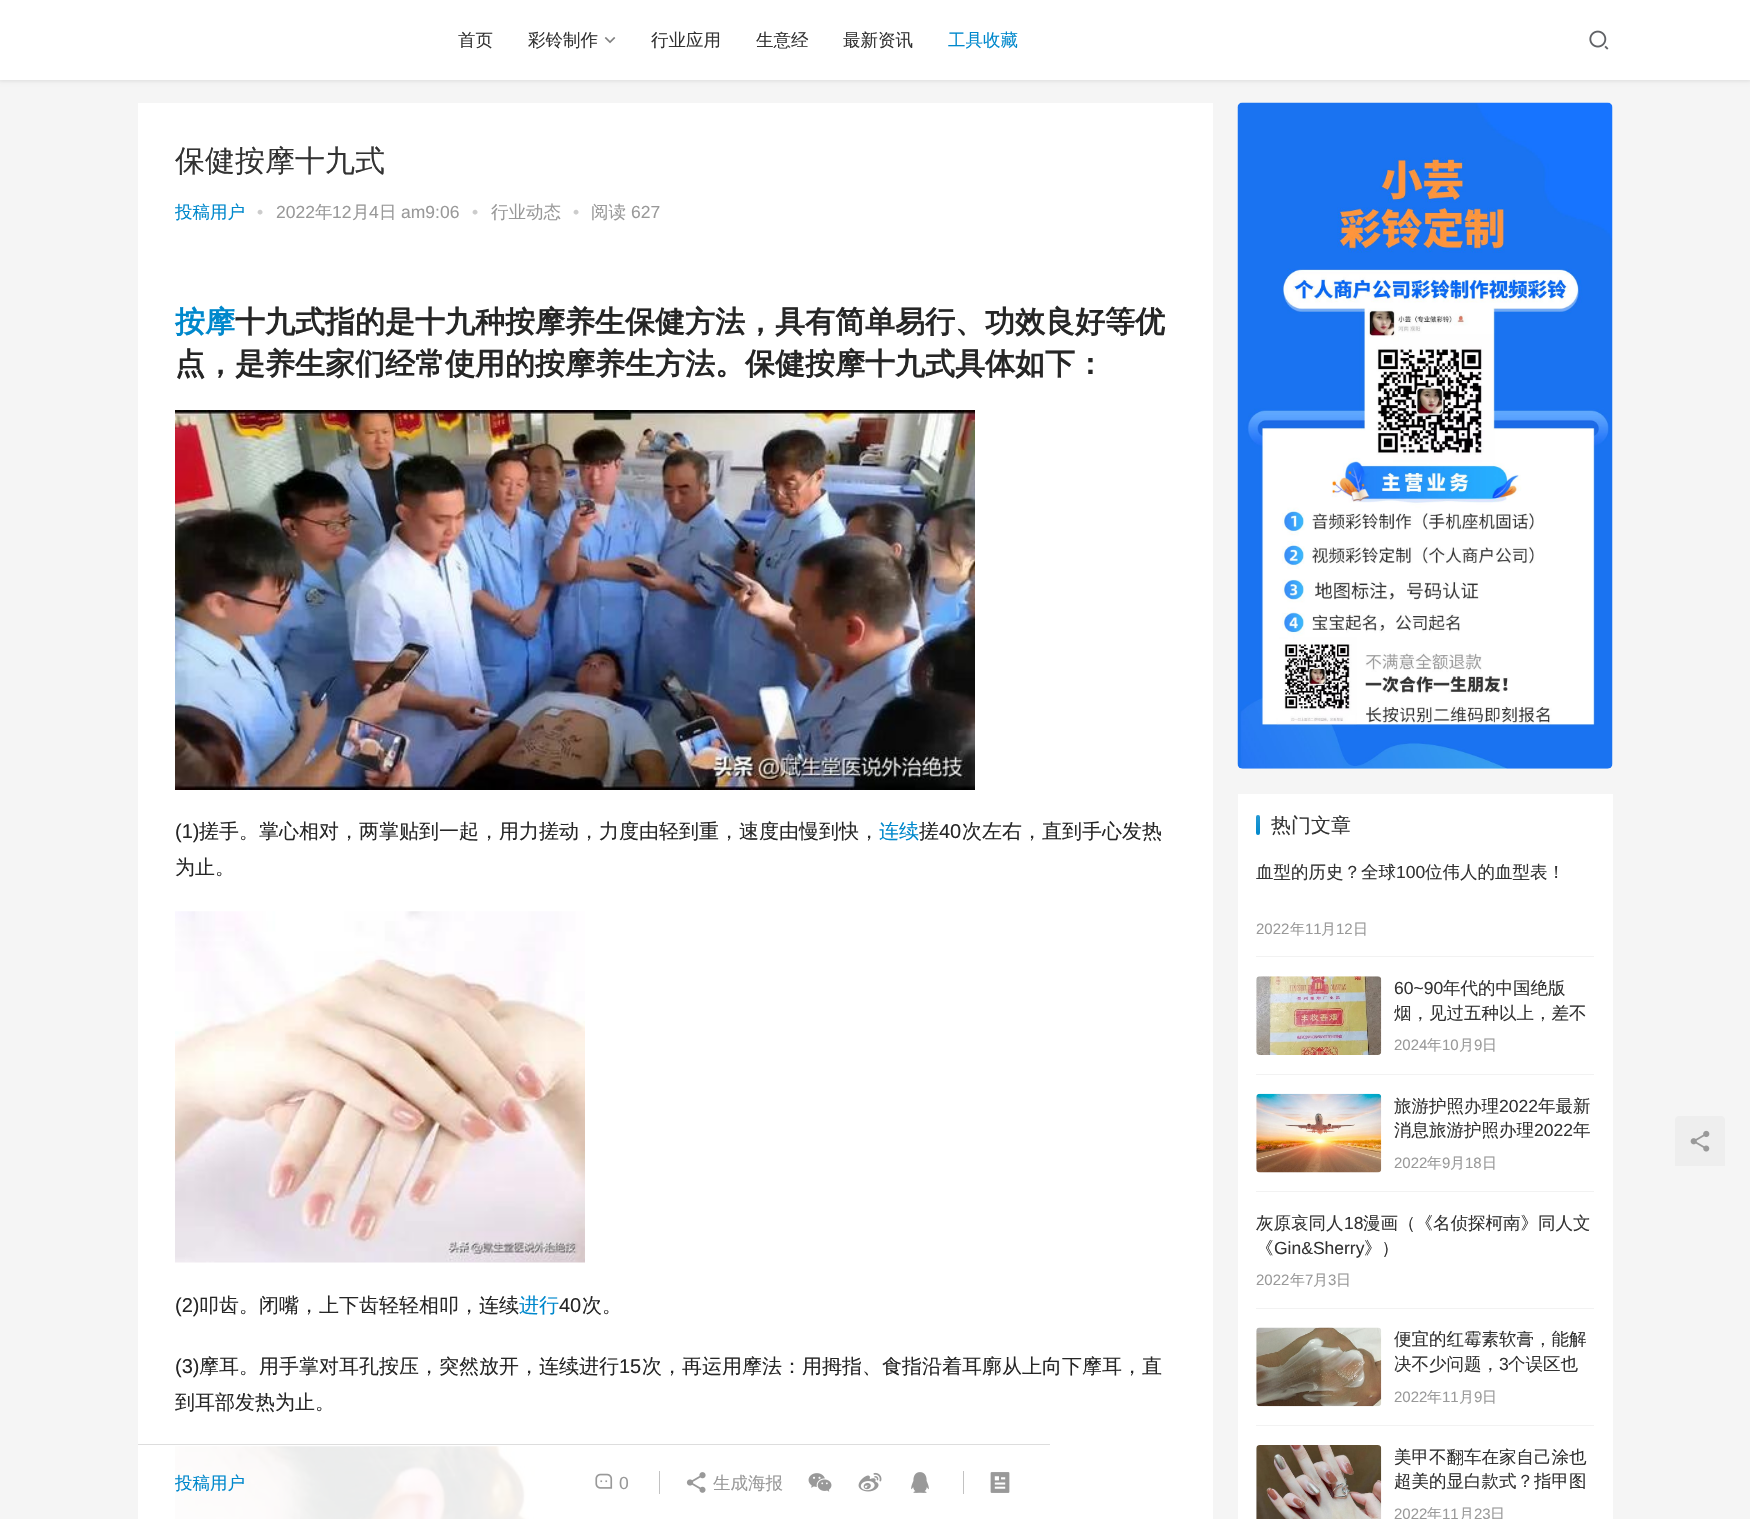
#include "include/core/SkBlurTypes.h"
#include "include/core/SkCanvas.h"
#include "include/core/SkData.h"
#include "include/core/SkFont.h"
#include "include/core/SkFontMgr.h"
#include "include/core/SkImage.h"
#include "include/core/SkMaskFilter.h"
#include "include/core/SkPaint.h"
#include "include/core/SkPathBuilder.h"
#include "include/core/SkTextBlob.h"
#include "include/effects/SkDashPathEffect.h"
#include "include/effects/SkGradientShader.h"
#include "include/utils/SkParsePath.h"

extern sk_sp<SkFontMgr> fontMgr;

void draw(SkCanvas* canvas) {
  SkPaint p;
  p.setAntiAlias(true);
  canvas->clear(SkColorSetRGB(245, 245, 245));
  p.setColor(SkColorSetARGB(26, 0, 0, 0));
  p.setMaskFilter(SkMaskFilter::MakeBlur(kNormal_SkBlurStyle, 2));
  canvas->drawRect(SkRect::MakeLTRB(-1, -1, 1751, 81), p);
  p.setMaskFilter(nullptr);
  p.setColor(SK_ColorWHITE);
  canvas->drawRect(SkRect::MakeLTRB(0, 0, 1750, 80), p);
  canvas->drawImageRect(SkImages::DeferredFromEncodedData(SkData::MakeFromFileName("images/1.png")), SkRect::MakeLTRB(604, 37, 616, 44), SkSamplingOptions());
  canvas->drawImageRect(SkImages::DeferredFromEncodedData(SkData::MakeFromFileName("images/2.png")), SkRect::MakeLTRB(1589, 30, 1609, 50), SkSamplingOptions());
  canvas->drawRect(SkRect::MakeLTRB(138, 103, 1213, 1519), p);
  canvas->drawImageRect(SkImages::DeferredFromEncodedData(SkData::MakeFromFileName("images/3.png")), SkRect::MakeLTRB(175, 410, 975, 790), SkSamplingOptions());
  canvas->drawImageRect(SkImages::DeferredFromEncodedData(SkData::MakeFromFileName("images/4.png")), SkRect::MakeLTRB(175, 911, 585, 1263), SkSamplingOptions());
  canvas->drawImageRect(SkImages::DeferredFromEncodedData(SkData::MakeFromFileName("images/5.png")), SkRect::MakeLTRB(175, 1446, 536, 1519), SkSamplingOptions());
  p.setColor(SkColorSetRGB(221, 221, 221));
  canvas->drawRect(SkRect::MakeLTRB(138, 1444, 1050, 1445), p);
  canvas->drawImageRect(SkImages::DeferredFromEncodedData(SkData::MakeFromFileName("images/6.png")), SkRect::MakeLTRB(595, 1473, 613, 1489), SkSamplingOptions());
  p.setColor(SkColorSetRGB(194, 194, 194));
  canvas->drawRect(SkRect::MakeLTRB(659, 1471, 660, 1494), p);
  canvas->drawImageRect(SkImages::DeferredFromEncodedData(SkData::MakeFromFileName("images/7.png")), SkRect::MakeLTRB(686, 1472, 706, 1493), SkSamplingOptions());
  canvas->drawImageRect(SkImages::DeferredFromEncodedData(SkData::MakeFromFileName("images/8.png")), SkRect::MakeLTRB(808, 1473, 832, 1492), SkSamplingOptions());
  canvas->drawImageRect(SkImages::DeferredFromEncodedData(SkData::MakeFromFileName("images/9.png")), SkRect::MakeLTRB(858, 1472, 882, 1492), SkSamplingOptions());
  canvas->drawImageRect(SkImages::DeferredFromEncodedData(SkData::MakeFromFileName("images/10.png")), SkRect::MakeLTRB(911, 1472, 929, 1493), SkSamplingOptions());
  canvas->drawRect(SkRect::MakeLTRB(963, 1471, 964, 1494), p);
  canvas->drawImageRect(SkImages::DeferredFromEncodedData(SkData::MakeFromFileName("images/11.png")), SkRect::MakeLTRB(990, 1472, 1010, 1493), SkSamplingOptions());
  canvas->drawImageRect(SkImages::DeferredFromEncodedData(SkData::MakeFromFileName("images/12.png")), SkRect::MakeLTRB(1237, 102, 1613, 769), SkSamplingOptions());
  p.setColor(SK_ColorWHITE);
  canvas->drawRect(SkRect::MakeLTRB(1238, 794, 1613, 1519), p);
  p.setColor(SkColorSetRGB(0, 136, 204));
  canvas->drawRoundRect(SkRect::MakeLTRB(1256, 815, 1260, 835), 2, 2, p);
  {
    const SkColor colors[] = {SkColorSetARGB(38, 255, 255, 255), SkColorSetARGB(0, 255, 255, 255)};
    const float stops[] = {0, 1};
    const SkPoint ends[] = {{1258, 815}, {1258, 835}};
    p.setShader(SkGradientShader::MakeLinear(ends, colors, stops, 2, SkTileMode::kClamp));
    p.setAlpha(255);
  }
  canvas->drawRoundRect(SkRect::MakeLTRB(1256, 815, 1260, 835), 2, 2, p);
  p.setShader(nullptr);
  p.setColor(SkColorSetRGB(242, 242, 242));
  canvas->drawRect(SkRect::MakeLTRB(1256, 956, 1594, 957), p);
  canvas->drawRect(SkRect::MakeLTRB(1256, 1074, 1594, 1075), p);
  canvas->drawImageRect(SkImages::DeferredFromEncodedData(SkData::MakeFromFileName("images/13.png")), SkRect::MakeLTRB(1256, 976, 1382, 1055), SkSamplingOptions());
  canvas->drawRect(SkRect::MakeLTRB(1256, 1191, 1594, 1192), p);
  canvas->drawImageRect(SkImages::DeferredFromEncodedData(SkData::MakeFromFileName("images/14.png")), SkRect::MakeLTRB(1256, 1093, 1382, 1173), SkSamplingOptions());
  canvas->drawRect(SkRect::MakeLTRB(1256, 1308, 1594, 1309), p);
  canvas->drawRect(SkRect::MakeLTRB(1256, 1425, 1594, 1426), p);
  canvas->drawImageRect(SkImages::DeferredFromEncodedData(SkData::MakeFromFileName("images/15.png")), SkRect::MakeLTRB(1256, 1327, 1382, 1407), SkSamplingOptions());
  canvas->drawImageRect(SkImages::DeferredFromEncodedData(SkData::MakeFromFileName("images/16.png")), SkRect::MakeLTRB(1256, 1445, 1382, 1519), SkSamplingOptions());
  p.setColor(SkColorSetRGB(238, 238, 238));
  canvas->drawPath(SkPathBuilder().moveTo(1679, 1116).lineTo(1721, 1116).cubicTo(1723, 1116, 1725, 1118, 1725, 1120).lineTo(1725, 1166).lineTo(1675, 1166).lineTo(1675, 1120).cubicTo(1675, 1118, 1677, 1116, 1679, 1116).close().detach(), p);
  canvas->drawImageRect(SkImages::DeferredFromEncodedData(SkData::MakeFromFileName("images/17.png")), SkRect::MakeLTRB(1690, 1130, 1710, 1152), SkSamplingOptions());
  SkFont font1(fontMgr->matchFamilyStyle("WenQuanYi Zen Hei", SkFontStyle(500, SkFontStyle::kNormal_Width, SkFontStyle::kUpright_Slant)), 17.5f);
  font1.setSubpixel(true);
  p.setColor(SkColorSetRGB(51, 51, 51));
  canvas->drawString("首页", 458, 46, font1, p);
  canvas->drawString("彩铃制作", 528, 46, font1, p);
  canvas->drawString("行业应用", 651, 46, font1, p);
  canvas->drawString("生意经", 756, 46, font1, p);
  canvas->drawString("最新资讯", 843, 46, font1, p);
  p.setColor(SkColorSetRGB(0, 136, 204));
  canvas->drawString("工具收藏", 948, 46, font1, p);
  SkFont font2(fontMgr->matchFamilyStyle("WenQuanYi Zen Hei", SkFontStyle(500, SkFontStyle::kNormal_Width, SkFontStyle::kUpright_Slant)), 30);
  font2.setSubpixel(true);
  p.setColor(SkColorSetRGB(51, 51, 51));
  canvas->drawString("保健按摩十九式", 175, 171, font2, p);
  p.setColor(SkColorSetRGB(0, 136, 204));
  canvas->drawString("投稿用户", 175, 218, font1, p);
  SkFont font3(fontMgr->matchFamilyStyle("Liberation Sans", SkFontStyle::Normal()), 17.5f);
  font3.setSubpixel(true);
  p.setColor(SkColorSetRGB(204, 204, 204));
  canvas->drawString("•", 257, 218, font3, p);
  p.setColor(SkColorSetRGB(153, 153, 153));
  canvas->drawString("2022", 276, 218, font3, p);
  canvas->drawString("年", 315, 218, font1, p);
  canvas->drawString("12", 332, 218, font3, p);
  canvas->drawString("月", 352, 218, font1, p);
  canvas->drawString("4", 369, 218, font3, p);
  canvas->drawString("日", 379, 218, font1, p);
  canvas->drawString("am9:06", 401, 218, font3, p);
  p.setColor(SkColorSetRGB(204, 204, 204));
  canvas->drawString("•", 472, 218, font3, p);
  p.setColor(SkColorSetRGB(153, 153, 153));
  canvas->drawString("行业动态", 491, 218, font1, p);
  p.setColor(SkColorSetRGB(204, 204, 204));
  canvas->drawString("•", 573, 218, font3, p);
  p.setColor(SkColorSetRGB(153, 153, 153));
  canvas->drawString("阅读", 591, 218, font1, p);
  canvas->drawString("627", 631, 218, font3, p);
  SkFont font4(fontMgr->matchFamilyStyle("WenQuanYi Zen Hei", SkFontStyle::Bold()), 30);
  font4.setSubpixel(true);
  p.setColor(SkColorSetRGB(0, 136, 204));
  canvas->drawString("按摩", 175, 332, font4, p);
  p.setColor(SkColorSetRGB(38, 38, 38));
  canvas->drawString("十九式指的是十九种按摩养生保健方法，具有简单易行、功效良好等优", 235, 332, font4, p);
  canvas->drawString("点，是养生家们经常使用的按摩养生方法。保健按摩十九式具体如下：", 175, 374, font4, p);
  SkFont font5(fontMgr->matchFamilyStyle("Liberation Sans", SkFontStyle::Normal()), 20);
  font5.setSubpixel(true);
  canvas->drawString("(1)", 175, 838, font5, p);
  SkFont font6(fontMgr->matchFamilyStyle("WenQuanYi Zen Hei", SkFontStyle(500, SkFontStyle::kNormal_Width, SkFontStyle::kUpright_Slant)), 20);
  font6.setSubpixel(true);
  canvas->drawString("搓手。掌心相对，两掌贴到一起，用力搓动，力度由轻到重，速度由慢到快，", 199, 838, font6, p);
  p.setColor(SkColorSetRGB(0, 136, 204));
  canvas->drawString("连续", 879, 838, font6, p);
  p.setColor(SkColorSetRGB(38, 38, 38));
  canvas->drawString("搓", 919, 838, font6, p);
  canvas->drawString("40", 939, 838, font5, p);
  canvas->drawString("次左右，直到手心发热", 962, 838, font6, p);
  canvas->drawString("为止。", 175, 874, font6, p);
  canvas->drawString("(2)", 175, 1312, font5, p);
  canvas->drawString("叩齿。闭嘴，上下齿轻轻相叩，连续", 199, 1312, font6, p);
  p.setColor(SkColorSetRGB(0, 136, 204));
  canvas->drawString("进行", 519, 1312, font6, p);
  p.setColor(SkColorSetRGB(38, 38, 38));
  canvas->drawString("40", 559, 1312, font5, p);
  canvas->drawString("次。", 582, 1312, font6, p);
  canvas->drawString("(3)", 175, 1373, font5, p);
  canvas->drawString("摩耳。用手掌对耳孔按压，突然放开，连续进行", 199, 1373, font6, p);
  canvas->drawString("15", 619, 1373, font5, p);
  canvas->drawString("次，再运用摩法：用拇指、食指沿着耳廓从上向下摩耳，直", 642, 1373, font6, p);
  canvas->drawString("到耳部发热为止。", 175, 1409, font6, p);
  p.setColor(SkColorSetRGB(0, 136, 204));
  canvas->drawString("投稿用户", 175, 1489, font1, p);
  p.setColor(SkColorSetRGB(153, 153, 153));
  canvas->drawString("0", 619, 1489, font3, p);
  canvas->drawString("生成海报", 713, 1489, font1, p);
  p.setColor(SkColorSetRGB(51, 51, 51));
  canvas->drawString("热门文章", 1271, 832, font6, p);
  canvas->drawString("血型的历史？全球", 1256, 878, font1, p);
  canvas->drawString("100", 1396, 878, font3, p);
  canvas->drawString("位伟人的血型表！", 1425, 878, font1, p);
  SkFont font7(fontMgr->matchFamilyStyle("Liberation Sans", SkFontStyle::Normal()), 15);
  font7.setSubpixel(true);
  p.setColor(SkColorSetRGB(153, 153, 153));
  canvas->drawString("2022", 1256, 934, font7, p);
  SkFont font8(fontMgr->matchFamilyStyle("WenQuanYi Zen Hei", SkFontStyle(500, SkFontStyle::kNormal_Width, SkFontStyle::kUpright_Slant)), 15);
  font8.setSubpixel(true);
  canvas->drawString("年", 1290, 934, font8, p);
  canvas->drawString("11", 1305, 934, font7, p);
  canvas->drawString("月", 1321, 934, font8, p);
  canvas->drawString("12", 1336, 934, font7, p);
  canvas->drawString("日", 1353, 934, font8, p);
  p.setColor(SkColorSetRGB(51, 51, 51));
  canvas->drawString("60~90", 1394, 994, font3, p);
  canvas->drawString("年代的中国绝版", 1443, 994, font1, p);
  canvas->drawString("烟，见过五种以上，差不", 1394, 1019, font1, p);
  p.setColor(SkColorSetRGB(153, 153, 153));
  canvas->drawString("2024", 1394, 1050, font7, p);
  canvas->drawString("年", 1427, 1050, font8, p);
  canvas->drawString("10", 1442, 1050, font7, p);
  canvas->drawString("月", 1459, 1050, font8, p);
  canvas->drawString("9", 1474, 1050, font7, p);
  canvas->drawString("日", 1482, 1050, font8, p);
  p.setColor(SkColorSetRGB(51, 51, 51));
  canvas->drawString("旅游护照办理", 1394, 1112, font1, p);
  canvas->drawString("2022", 1499, 1112, font3, p);
  canvas->drawString("年最新", 1538, 1112, font1, p);
  canvas->drawString("消息旅游护照办理", 1394, 1136, font1, p);
  canvas->drawString("2022", 1534, 1136, font3, p);
  canvas->drawString("年", 1573, 1136, font1, p);
  p.setColor(SkColorSetRGB(153, 153, 153));
  canvas->drawString("2022", 1394, 1168, font7, p);
  canvas->drawString("年", 1427, 1168, font8, p);
  canvas->drawString("9", 1442, 1168, font7, p);
  canvas->drawString("月", 1450, 1168, font8, p);
  canvas->drawString("18", 1465, 1168, font7, p);
  canvas->drawString("日", 1482, 1168, font8, p);
  p.setColor(SkColorSetRGB(51, 51, 51));
  canvas->drawString("灰原哀同人", 1256, 1229, font1, p);
  canvas->drawString("18", 1344, 1229, font3, p);
  canvas->drawString("漫画（《名侦探柯南》同人文", 1363, 1229, font1, p);
  canvas->drawString("《", 1256, 1254, font1, p);
  canvas->drawString("Gin&Sherry", 1274, 1254, font3, p);
  canvas->drawString("》）", 1364, 1254, font1, p);
  p.setColor(SkColorSetRGB(153, 153, 153));
  canvas->drawString("2022", 1256, 1285, font7, p);
  canvas->drawString("年", 1290, 1285, font8, p);
  canvas->drawString("7", 1305, 1285, font7, p);
  canvas->drawString("月", 1313, 1285, font8, p);
  canvas->drawString("3", 1328, 1285, font7, p);
  canvas->drawString("日", 1336, 1285, font8, p);
  p.setColor(SkColorSetRGB(51, 51, 51));
  canvas->drawString("便宜的红霉素软膏，能解", 1394, 1345, font1, p);
  canvas->drawString("决不少问题，", 1394, 1370, font1, p);
  canvas->drawString("3", 1499, 1370, font3, p);
  canvas->drawString("个误区也", 1508, 1370, font1, p);
  p.setColor(SkColorSetRGB(153, 153, 153));
  canvas->drawString("2022", 1394, 1402, font7, p);
  canvas->drawString("年", 1427, 1402, font8, p);
  canvas->drawString("11", 1442, 1402, font7, p);
  canvas->drawString("月", 1459, 1402, font8, p);
  canvas->drawString("9", 1474, 1402, font7, p);
  canvas->drawString("日", 1482, 1402, font8, p);
  p.setColor(SkColorSetRGB(51, 51, 51));
  canvas->drawString("美甲不翻车在家自己涂也", 1394, 1463, font1, p);
  canvas->drawString("超美的显白款式？指甲图", 1394, 1487, font1, p);
  p.setColor(SkColorSetRGB(153, 153, 153));
  canvas->drawString("2022", 1394, 1519, font7, p);
  canvas->drawString("年", 1427, 1519, font8, p);
  canvas->drawString("11", 1442, 1519, font7, p);
  canvas->drawString("月", 1459, 1519, font8, p);
  canvas->drawString("23", 1474, 1519, font7, p);
  canvas->drawString("日", 1490, 1519, font8, p);
}
